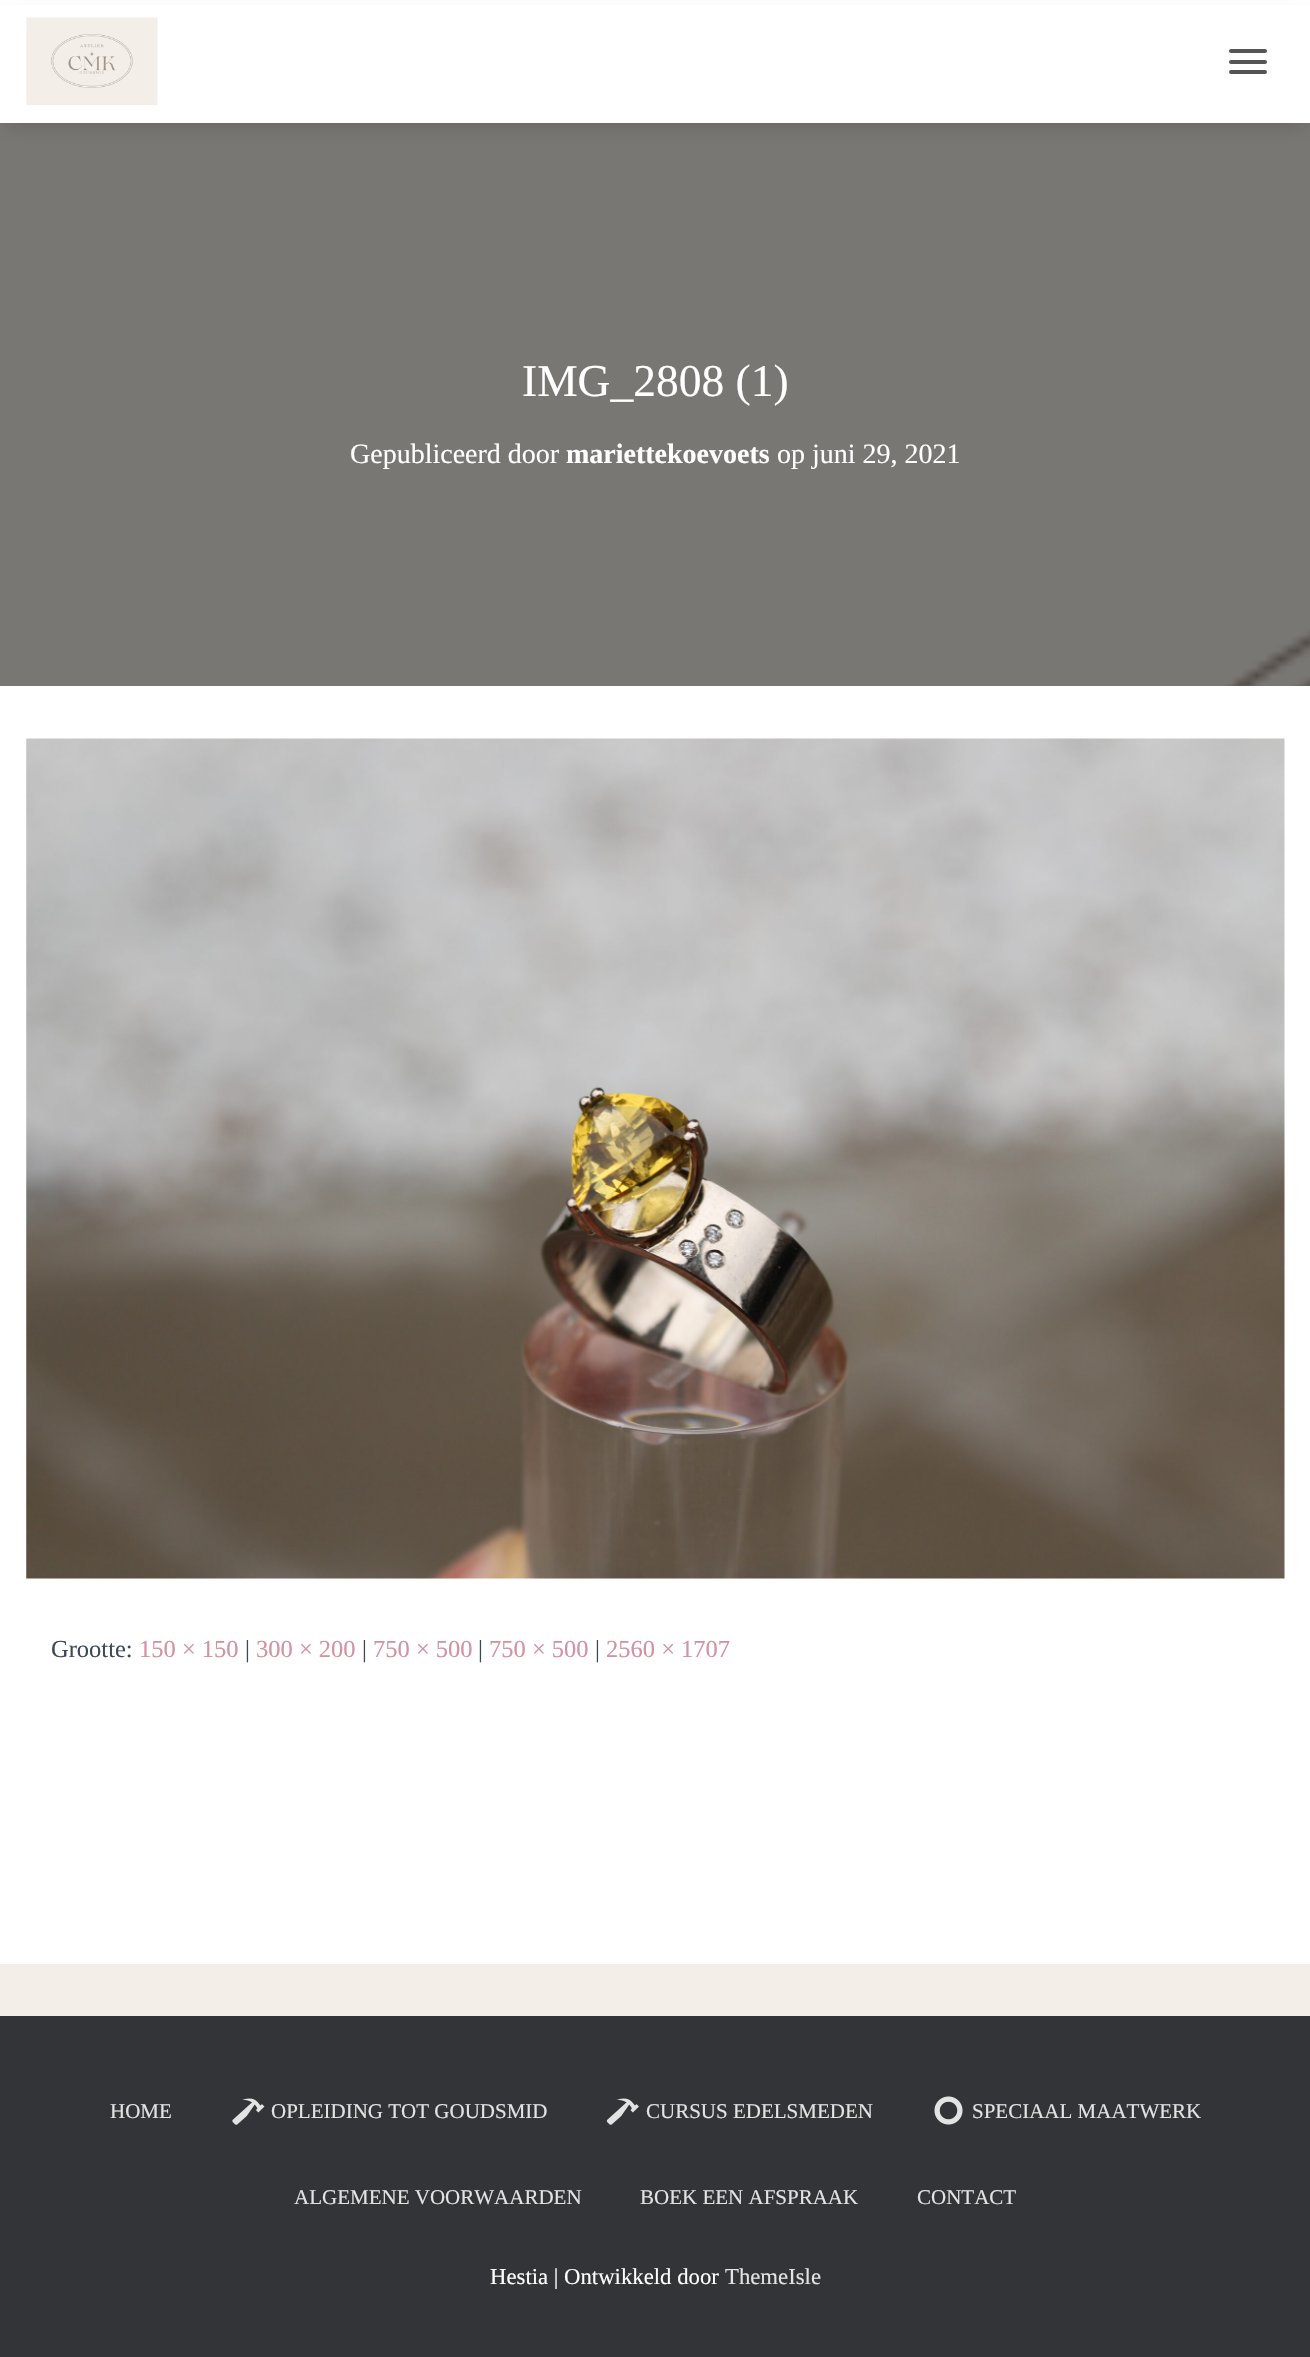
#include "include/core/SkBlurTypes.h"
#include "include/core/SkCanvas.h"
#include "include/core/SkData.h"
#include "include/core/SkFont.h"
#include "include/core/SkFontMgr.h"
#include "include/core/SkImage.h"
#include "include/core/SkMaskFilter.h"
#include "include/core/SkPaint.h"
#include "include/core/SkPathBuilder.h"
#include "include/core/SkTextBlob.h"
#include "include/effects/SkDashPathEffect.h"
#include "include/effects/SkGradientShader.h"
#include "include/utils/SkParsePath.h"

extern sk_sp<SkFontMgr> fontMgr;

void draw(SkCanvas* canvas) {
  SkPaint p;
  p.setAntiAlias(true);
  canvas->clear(SK_ColorWHITE);
  canvas->drawImageRect(SkImages::DeferredFromEncodedData(SkData::MakeFromFileName("images/1.png")), SkRect::MakeLTRB(0, 123, 1310, 2016), SkSamplingOptions());
  p.setColor(SkColorSetARGB(128, 0, 0, 0));
  canvas->drawRect(SkRect::MakeLTRB(0, 123, 1310, 686), p);
  p.setColor(SkColorSetARGB(38, 0, 0, 0));
  p.setMaskFilter(SkMaskFilter::MakeBlur(kNormal_SkBlurStyle, 9));
  canvas->drawRect(SkRect::MakeLTRB(7, 18, 1304, 126), p);
  p.setMaskFilter(nullptr);
  p.setColor(SK_ColorWHITE);
  canvas->drawRect(SkRect::MakeLTRB(0, 5, 1310, 123), p);
  canvas->drawImageRect(SkImages::DeferredFromEncodedData(SkData::MakeFromFileName("images/2.png")), SkRect::MakeLTRB(26, 17, 158, 105), SkSamplingOptions());
  p.setColor(SkColorSetRGB(85, 85, 85));
  canvas->drawRoundRect(SkRect::MakeLTRB(1229, 49, 1267, 53), 2, 2, p);
  canvas->drawRoundRect(SkRect::MakeLTRB(1229, 60, 1267, 64), 2, 2, p);
  canvas->drawRoundRect(SkRect::MakeLTRB(1229, 70, 1267, 74), 2, 2, p);
  p.setColor(SK_ColorWHITE);
  canvas->drawRect(SkRect::MakeLTRB(0, 686, 1310, 1964), p);
  canvas->drawImageRect(SkImages::DeferredFromEncodedData(SkData::MakeFromFileName("images/3.png")), SkRect::MakeLTRB(26, 738, 1285, 1579), SkSamplingOptions());
  p.setColor(SkColorSetRGB(50, 52, 55));
  canvas->drawRect(SkRect::MakeLTRB(0, 2016, 1310, 2357), p);
  canvas->drawImageRect(SkImages::DeferredFromEncodedData(SkData::MakeFromFileName("images/4.png")), SkRect::MakeLTRB(232, 2098, 265, 2125), SkSamplingOptions());
  canvas->drawImageRect(SkImages::DeferredFromEncodedData(SkData::MakeFromFileName("images/5.png")), SkRect::MakeLTRB(606, 2098, 639, 2125), SkSamplingOptions());
  canvas->drawImageRect(SkImages::DeferredFromEncodedData(SkData::MakeFromFileName("images/6.png")), SkRect::MakeLTRB(934, 2096, 963, 2125), SkSamplingOptions());
  SkFont font1(fontMgr->matchFamilyStyle("Liberation Serif", SkFontStyle::Normal()), 45.5f);
  font1.setSubpixel(true);
  p.setColor(SK_ColorWHITE);
  canvas->drawString("IMG_2808 (1)", 522, 396, font1, p);
  SkFont font2(fontMgr->matchFamilyStyle("Liberation Serif", SkFontStyle::Normal()), 28);
  font2.setSubpixel(true);
  canvas->drawString("Gepubliceerd door", 350, 463, font2, p);
  SkFont font3(fontMgr->matchFamilyStyle("Liberation Serif", SkFontStyle::Bold()), 28);
  font3.setSubpixel(true);
  canvas->drawString("mariettekoevoets", 566, 463, font3, p);
  canvas->drawString("op juni 29, 2021", 777, 463, font2, p);
  SkFont font4(fontMgr->matchFamilyStyle("Liberation Serif", SkFontStyle::Normal()), 24.5f);
  font4.setSubpixel(true);
  p.setColor(SkColorSetRGB(60, 72, 88));
  canvas->drawString("Grootte:", 51, 1657, font4, p);
  p.setColor(SkColorSetRGB(209, 146, 163));
  canvas->drawString("150 × 150", 139, 1657, font4, p);
  p.setColor(SkColorSetRGB(60, 72, 88));
  canvas->drawString("|", 245, 1657, font4, p);
  p.setColor(SkColorSetRGB(209, 146, 163));
  canvas->drawString("300 × 200", 256, 1657, font4, p);
  p.setColor(SkColorSetRGB(60, 72, 88));
  canvas->drawString("|", 362, 1657, font4, p);
  p.setColor(SkColorSetRGB(209, 146, 163));
  canvas->drawString("750 × 500", 373, 1657, font4, p);
  p.setColor(SkColorSetRGB(60, 72, 88));
  canvas->drawString("|", 478, 1657, font4, p);
  p.setColor(SkColorSetRGB(209, 146, 163));
  canvas->drawString("750 × 500", 489, 1657, font4, p);
  p.setColor(SkColorSetRGB(60, 72, 88));
  canvas->drawString("|", 595, 1657, font4, p);
  p.setColor(SkColorSetRGB(209, 146, 163));
  canvas->drawString("2560 × 1707", 606, 1657, font4, p);
  SkFont font5(fontMgr->matchFamilyStyle("Liberation Serif", SkFontStyle::Normal()), 21);
  font5.setSubpixel(true);
  p.setColor(SkColorSetRGB(226, 227, 227));
  canvas->drawString("HOME", 110, 2118, font5, p);
  canvas->drawString("OPLEIDING TOT GOUDSMID", 271, 2118, font5, p);
  canvas->drawString("CURSUS EDELSMEDEN", 646, 2118, font5, p);
  canvas->drawString("SPECIAAL MAATWERK", 972, 2118, font5, p);
  canvas->drawString("ALGEMENE VOORWAARDEN", 294, 2204, font5, p);
  canvas->drawString("BOEK EEN AFSPRAAK", 640, 2204, font5, p);
  canvas->drawString("CONTACT", 917, 2204, font5, p);
  SkFont font6(fontMgr->matchFamilyStyle("Liberation Serif", SkFontStyle::Normal()), 22.75f);
  font6.setSubpixel(true);
  p.setColor(SK_ColorWHITE);
  canvas->drawString("Hestia | Ontwikkeld door", 490, 2284, font6, p);
  p.setColor(SkColorSetRGB(226, 227, 227));
  canvas->drawString("ThemeIsle", 725, 2284, font6, p);
}
